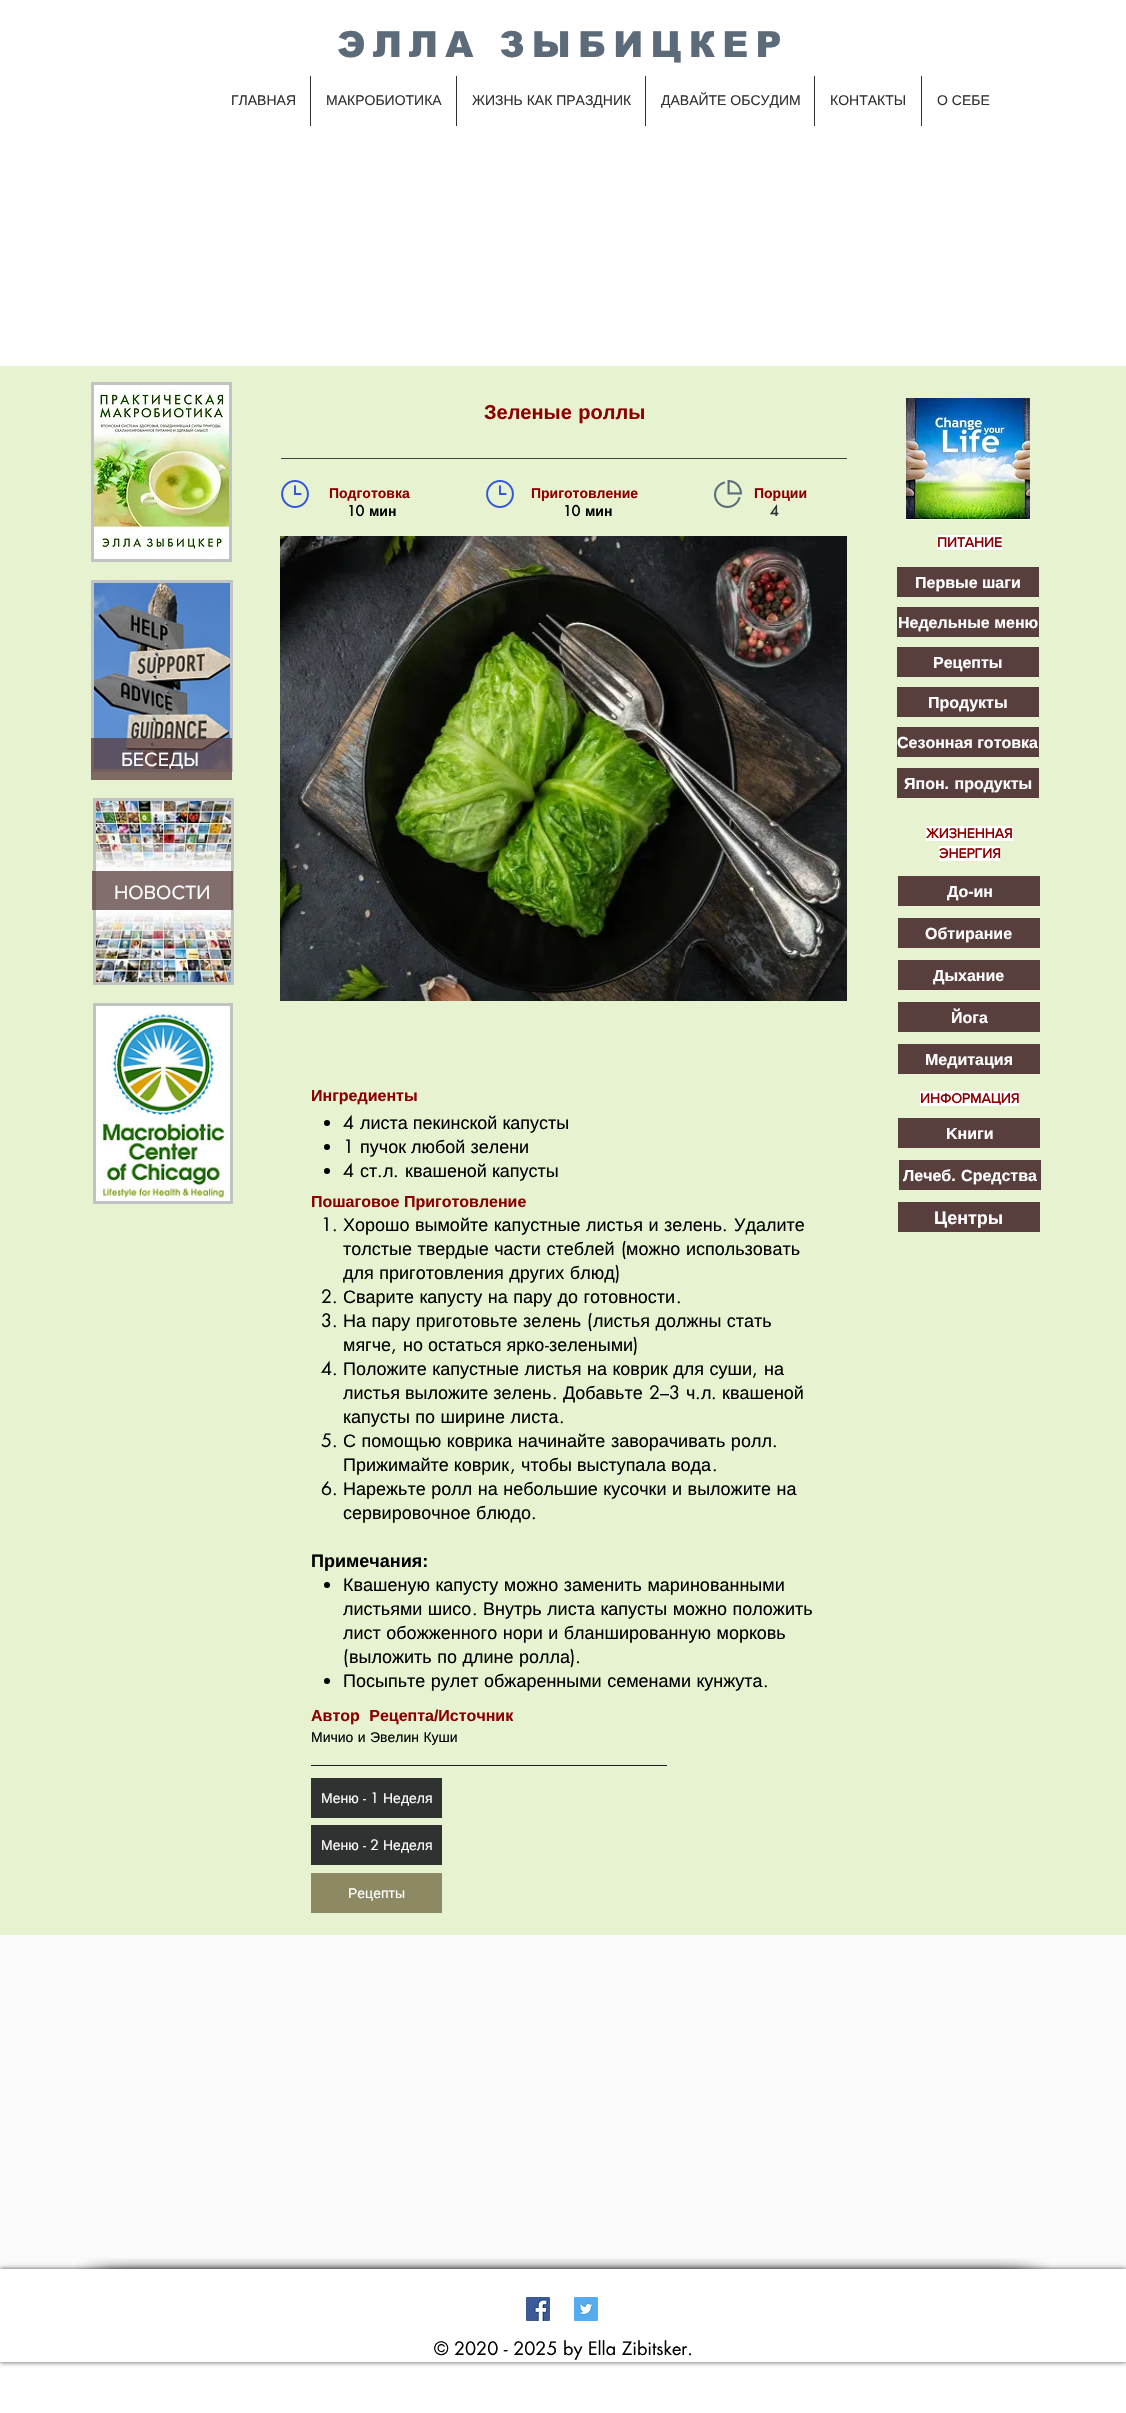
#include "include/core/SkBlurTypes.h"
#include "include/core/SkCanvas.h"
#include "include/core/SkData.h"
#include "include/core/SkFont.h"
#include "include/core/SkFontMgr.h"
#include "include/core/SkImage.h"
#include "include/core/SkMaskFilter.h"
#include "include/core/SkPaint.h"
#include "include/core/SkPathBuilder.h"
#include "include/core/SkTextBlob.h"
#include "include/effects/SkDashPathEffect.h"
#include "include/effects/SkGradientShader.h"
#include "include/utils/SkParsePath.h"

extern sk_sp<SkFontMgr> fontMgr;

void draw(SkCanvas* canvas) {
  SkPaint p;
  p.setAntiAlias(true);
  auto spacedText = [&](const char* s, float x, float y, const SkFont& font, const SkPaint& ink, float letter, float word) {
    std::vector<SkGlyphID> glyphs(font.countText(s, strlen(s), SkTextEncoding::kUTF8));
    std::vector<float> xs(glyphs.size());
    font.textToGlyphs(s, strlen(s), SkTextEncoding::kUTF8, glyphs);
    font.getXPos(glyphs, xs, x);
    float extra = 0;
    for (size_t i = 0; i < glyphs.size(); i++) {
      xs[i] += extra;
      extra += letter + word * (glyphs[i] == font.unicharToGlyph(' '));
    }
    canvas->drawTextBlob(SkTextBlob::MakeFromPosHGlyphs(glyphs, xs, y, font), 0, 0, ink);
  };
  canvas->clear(SK_ColorWHITE);
  p.setColor(SkColorSetRGB(48, 49, 49));
  canvas->drawRect(SkRect::MakeLTRB(310, 76, 311, 126), p);
  canvas->drawRect(SkRect::MakeLTRB(456, 76, 457, 126), p);
  canvas->drawRect(SkRect::MakeLTRB(645, 76, 646, 126), p);
  canvas->drawRect(SkRect::MakeLTRB(814, 76, 815, 126), p);
  canvas->drawRect(SkRect::MakeLTRB(921, 76, 922, 126), p);
  p.setColor(SkColorSetRGB(230, 242, 208));
  canvas->drawRect(SkRect::MakeLTRB(0, 366, 1126, 1935), p);
  p.setColor(SkColorSetRGB(66, 66, 66));
  canvas->drawRect(SkRect::MakeLTRB(281, 458, 847, 459), p);
  canvas->drawImageRect(SkImages::DeferredFromEncodedData(SkData::MakeFromFileName("images/1.png")), SkRect::MakeLTRB(281, 480, 309, 508), SkSamplingOptions());
  canvas->drawImageRect(SkImages::DeferredFromEncodedData(SkData::MakeFromFileName("images/1.png")), SkRect::MakeLTRB(486, 480, 514, 508), SkSamplingOptions());
  canvas->drawImageRect(SkImages::DeferredFromEncodedData(SkData::MakeFromFileName("images/2.png")), SkRect::MakeLTRB(714, 480, 742, 508), SkSamplingOptions());
  p.setColor(SkColorSetRGB(194, 194, 194));
  canvas->drawRect(SkRect::MakeLTRB(91, 382, 232, 562), p);
  canvas->drawImageRect(SkImages::DeferredFromEncodedData(SkData::MakeFromFileName("images/3.png")), SkRect::MakeLTRB(94, 385, 229, 559), SkSamplingOptions());
  canvas->drawRect(SkRect::MakeLTRB(91, 580, 233, 772), p);
  canvas->drawImageRect(SkImages::DeferredFromEncodedData(SkData::MakeFromFileName("images/4.png")), SkRect::MakeLTRB(94, 583, 230, 769), SkSamplingOptions());
  p.setColor(SkColorSetARGB(191, 89, 62, 62));
  canvas->drawRect(SkRect::MakeLTRB(91, 738, 232, 780), p);
  p.setColor(SkColorSetRGB(194, 194, 194));
  canvas->drawRect(SkRect::MakeLTRB(93, 798, 234, 985), p);
  canvas->drawImageRect(SkImages::DeferredFromEncodedData(SkData::MakeFromFileName("images/5.png")), SkRect::MakeLTRB(96, 801, 231, 982), SkSamplingOptions());
  p.setColor(SkColorSetARGB(191, 89, 62, 62));
  canvas->drawRect(SkRect::MakeLTRB(92, 871, 233, 910), p);
  p.setColor(SkColorSetRGB(194, 194, 194));
  canvas->drawRect(SkRect::MakeLTRB(93, 1003, 233, 1204), p);
  canvas->drawImageRect(SkImages::DeferredFromEncodedData(SkData::MakeFromFileName("images/6.png")), SkRect::MakeLTRB(96, 1006, 230, 1201), SkSamplingOptions());
  canvas->drawImageRect(SkImages::DeferredFromEncodedData(SkData::MakeFromFileName("images/7.png")), SkRect::MakeLTRB(280, 536, 847, 1001), SkSamplingOptions());
  canvas->drawImageRect(SkImages::DeferredFromEncodedData(SkData::MakeFromFileName("images/8.png")), SkRect::MakeLTRB(906, 398, 1030, 520), SkSamplingOptions());
  p.setColor(SK_ColorWHITE);
  canvas->drawRect(SkRect::MakeLTRB(937, 535, 1002, 550), p);
  p.setColor(SkColorSetRGB(89, 62, 62));
  canvas->drawRect(SkRect::MakeLTRB(897, 567, 1039, 597), p);
  canvas->drawRect(SkRect::MakeLTRB(897, 607, 1039, 637), p);
  canvas->drawRect(SkRect::MakeLTRB(897, 647, 1039, 677), p);
  canvas->drawRect(SkRect::MakeLTRB(897, 687, 1039, 717), p);
  canvas->drawRect(SkRect::MakeLTRB(897, 727, 1039, 757), p);
  canvas->drawRect(SkRect::MakeLTRB(897, 768, 1039, 798), p);
  p.setColor(SK_ColorWHITE);
  canvas->drawRect(SkRect::MakeLTRB(926, 826, 1013, 841), p);
  canvas->drawRect(SkRect::MakeLTRB(939, 846, 1000, 861), p);
  p.setColor(SkColorSetRGB(89, 62, 62));
  canvas->drawRect(SkRect::MakeLTRB(898, 876, 1040, 906), p);
  canvas->drawRect(SkRect::MakeLTRB(898, 918, 1040, 948), p);
  canvas->drawRect(SkRect::MakeLTRB(898, 960, 1040, 990), p);
  canvas->drawRect(SkRect::MakeLTRB(898, 1002, 1040, 1032), p);
  canvas->drawRect(SkRect::MakeLTRB(898, 1044, 1040, 1074), p);
  p.setColor(SK_ColorWHITE);
  canvas->drawRect(SkRect::MakeLTRB(920, 1091, 1019, 1106), p);
  p.setColor(SkColorSetRGB(89, 62, 62));
  canvas->drawRect(SkRect::MakeLTRB(898, 1118, 1040, 1148), p);
  canvas->drawRect(SkRect::MakeLTRB(899, 1160, 1041, 1190), p);
  canvas->drawRect(SkRect::MakeLTRB(898, 1202, 1040, 1232), p);
  p.setColor(SK_ColorBLACK);
  canvas->drawCircle(327, 1123, 3, p);
  canvas->drawCircle(327, 1147, 3, p);
  canvas->drawCircle(327, 1171, 3, p);
  canvas->drawCircle(327, 1585, 3, p);
  canvas->drawCircle(327, 1681, 3, p);
  p.setColor(SkColorSetRGB(20, 29, 39));
  canvas->drawRect(SkRect::MakeLTRB(311, 1765, 667, 1766), p);
  p.setColor(SkColorSetRGB(48, 49, 49));
  canvas->drawRect(SkRect::MakeLTRB(311, 1778, 442, 1818), p);
  canvas->drawRect(SkRect::MakeLTRB(311, 1825, 442, 1865), p);
  p.setColor(SkColorSetRGB(141, 138, 99));
  canvas->drawRect(SkRect::MakeLTRB(311, 1873, 442, 1913), p);
  p.setColor(SkColorSetRGB(250, 250, 250));
  canvas->drawRect(SkRect::MakeLTRB(0, 1935, 1126, 2269), p);
  canvas->save();
  canvas->clipPath(SkPathBuilder(SkPathFillType::kEvenOdd).moveTo(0, 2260).lineTo(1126, 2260).lineTo(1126, 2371).lineTo(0, 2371).close().moveTo(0, 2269).lineTo(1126, 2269).lineTo(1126, 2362).lineTo(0, 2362).close().detach(), true);
  p.setColor(SkColorSetARGB(179, 0, 0, 0));
  p.setMaskFilter(SkMaskFilter::MakeBlur(kNormal_SkBlurStyle, 2.5f));
  canvas->drawRect(SkRect::MakeLTRB(0, 2269, 1126, 2362), p);
  p.setMaskFilter(nullptr);
  canvas->restore();
  canvas->drawImageRect(SkImages::DeferredFromEncodedData(SkData::MakeFromFileName("images/9.png")), SkRect::MakeLTRB(76, 2258, 173, 2269), SkSamplingOptions());
  canvas->drawImageRect(SkImages::DeferredFromEncodedData(SkData::MakeFromFileName("images/10.png")), SkRect::MakeLTRB(173, 2258, 953, 2269), SkSamplingOptions());
  canvas->drawImageRect(SkImages::DeferredFromEncodedData(SkData::MakeFromFileName("images/11.png")), SkRect::MakeLTRB(953, 2258, 1050, 2269), SkSamplingOptions());
  canvas->drawImageRect(SkImages::DeferredFromEncodedData(SkData::MakeFromFileName("images/12.png")), SkRect::MakeLTRB(526, 2297, 550, 2321), SkSamplingOptions());
  canvas->drawImageRect(SkImages::DeferredFromEncodedData(SkData::MakeFromFileName("images/13.png")), SkRect::MakeLTRB(574, 2297, 598, 2321), SkSamplingOptions());
  SkFont font1(fontMgr->matchFamilyStyle("arial", SkFontStyle(900, SkFontStyle::kNormal_Width, SkFontStyle::kUpright_Slant)), 36);
  font1.setSubpixel(true);
  p.setColor(SkColorSetRGB(92, 107, 122));
  spacedText("ЭЛЛА ЗЫБИЦКЕР", 337, 57, font1, p, 7.25f, 0);
  SkFont font2(fontMgr->matchFamilyStyle("Liberation Sans", SkFontStyle::Normal()), 14);
  font2.setSubpixel(true);
  p.setColor(SkColorSetRGB(48, 49, 49));
  canvas->drawString("ГЛАВНАЯ", 231, 105, font2, p);
  canvas->drawString("МАКРОБИОТИКА", 326, 105, font2, p);
  canvas->drawString("ЖИЗНЬ КАК ПРАЗДНИК", 472, 105, font2, p);
  canvas->drawString("ДАВАЙТЕ ОБСУДИМ", 661, 105, font2, p);
  canvas->drawString("КОНТАКТЫ", 830, 105, font2, p);
  canvas->drawString("О СЕБЕ", 937, 105, font2, p);
  SkFont font3(fontMgr->matchFamilyStyle("Liberation Sans", SkFontStyle::Bold()), 20);
  font3.setSubpixel(true);
  p.setColor(SkColorSetRGB(139, 0, 0));
  spacedText("Зеленые роллы", 484, 419, font3, p, 0, 1);
  SkFont font4(fontMgr->matchFamilyStyle("Liberation Sans", SkFontStyle::Bold()), 14);
  font4.setSubpixel(true);
  canvas->drawString("Подготовка", 329, 498, font4, p);
  canvas->drawString("Приготовление", 531, 498, font4, p);
  canvas->drawString("Порции", 754, 498, font4, p);
  SkFont font5(fontMgr->matchFamilyStyle("futura", SkFontStyle::Bold()), 14);
  font5.setSubpixel(true);
  p.setColor(SK_ColorBLACK);
  canvas->drawString("10", 347, 516, font5, p);
  canvas->drawString("мин", 369, 516, font4, p);
  canvas->drawString("10", 563, 516, font5, p);
  canvas->drawString("мин", 585, 516, font4, p);
  p.setColor(SkColorSetRGB(48, 49, 49));
  canvas->drawString("4", 770, 516, font5, p);
  SkFont font6(fontMgr->matchFamilyStyle("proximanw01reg", SkFontStyle::Normal()), 20);
  font6.setSubpixel(true);
  p.setColor(SK_ColorWHITE);
  canvas->drawString("БЕСЕДЫ", 121, 766, font6, p);
  canvas->drawString("НОВОСТИ", 114, 899, font6, p);
  SkFont font7(fontMgr->matchFamilyStyle("proximanw01reg", SkFontStyle::Bold()), 14);
  font7.setSubpixel(true);
  p.setColor(SkColorSetRGB(139, 0, 0));
  canvas->drawString("ПИТАНИЕ", 937, 547, font7, p);
  SkFont font8(fontMgr->matchFamilyStyle("Liberation Sans", SkFontStyle::Bold()), 16);
  font8.setSubpixel(true);
  p.setColor(SK_ColorWHITE);
  canvas->drawString("Первые шаги", 915, 588, font8, p);
  canvas->drawString("Недельные меню", 898, 628, font8, p);
  canvas->drawString("Рецепты", 933, 668, font8, p);
  canvas->drawString("Продукты", 928, 708, font8, p);
  canvas->drawString("Сезонная готовка", 897, 748, font8, p);
  spacedText("Япон. продукты", 904, 789, font8, p, 0, 1);
  p.setColor(SkColorSetRGB(139, 0, 0));
  canvas->drawString("ЖИЗНЕННАЯ", 926, 838, font7, p);
  canvas->drawString("ЭНЕРГИЯ", 939, 858, font7, p);
  p.setColor(SK_ColorWHITE);
  canvas->drawString("До-ин", 947, 897, font8, p);
  canvas->drawString("Обтирание", 925, 939, font8, p);
  canvas->drawString("Дыхание", 933, 981, font8, p);
  canvas->drawString("Йога", 951, 1023, font8, p);
  canvas->drawString("Медитация", 925, 1065, font8, p);
  p.setColor(SkColorSetRGB(139, 0, 0));
  canvas->drawString("ИНФОРМАЦИЯ", 920, 1103, font7, p);
  p.setColor(SK_ColorWHITE);
  canvas->drawString("Kниги", 946, 1139, font8, p);
  spacedText("Лечеб. Средства", 903, 1181, font8, p, 0, 1);
  SkFont font9(fontMgr->matchFamilyStyle("Liberation Sans", SkFontStyle::Bold()), 18);
  font9.setSubpixel(true);
  canvas->drawString("Центры", 934, 1224, font9, p);
  p.setColor(SkColorSetRGB(139, 0, 0));
  canvas->drawString("Ингредиенты", 311, 1101, font8, p);
  SkFont font10(fontMgr->matchFamilyStyle("futura", SkFontStyle::Normal()), 18);
  font10.setSubpixel(true);
  p.setColor(SK_ColorBLACK);
  canvas->drawString("4", 343, 1129, font10, p);
  SkFont font11(fontMgr->matchFamilyStyle("Liberation Sans", SkFontStyle::Normal()), 18);
  font11.setSubpixel(true);
  canvas->drawString("листа пекинской капусты", 360, 1129, font11, p);
  canvas->drawString("1", 343, 1153, font10, p);
  canvas->drawString("пучок любой зелени", 360, 1153, font11, p);
  canvas->drawString("4", 343, 1177, font10, p);
  canvas->drawString("ст", 360, 1177, font11, p);
  canvas->drawString(".", 377, 1177, font10, p);
  canvas->drawString("л", 383, 1177, font11, p);
  canvas->drawString(".", 393, 1177, font10, p);
  canvas->drawString("квашеной капусты", 405, 1177, font11, p);
  p.setColor(SkColorSetRGB(139, 0, 0));
  canvas->drawString("Пошаговое Приготовление", 311, 1207, font8, p);
  p.setColor(SK_ColorBLACK);
  canvas->drawString("1.", 321, 1231, font10, p);
  spacedText("Хорошо вымойте капустные листья и зелень", 343, 1231, font11, p, 0, 0.5f);
  canvas->drawString(".", 722, 1231, font10, p);
  canvas->drawString("Удалите", 734, 1231, font11, p);
  spacedText("толстые твердые части стеблей", 343, 1255, font11, p, 0, 0.5f);
  canvas->drawString("(", 621, 1255, font10, p);
  spacedText("можно использовать", 626, 1255, font11, p, 0, 0.5f);
  spacedText("для приготовления других блюд", 343, 1279, font11, p, 0, 0.5f);
  canvas->drawString(")", 615, 1279, font10, p);
  canvas->drawString("2.", 321, 1303, font10, p);
  spacedText("Сварите капусту на пару до готовности", 343, 1303, font11, p, 0, 0.5f);
  canvas->drawString(".", 676, 1303, font10, p);
  canvas->drawString("3.", 321, 1327, font10, p);
  spacedText("На пару приготовьте зелень", 343, 1327, font11, p, 0, 0.5f);
  canvas->drawString("(", 587, 1327, font10, p);
  spacedText("листья должны стать", 593, 1327, font11, p, 0, 0.5f);
  canvas->drawString("мягче", 343, 1351, font11, p);
  canvas->drawString("но остаться ярко", 403, 1351, font11, p);
  canvas->drawString("-", 545, 1351, font10, p);
  canvas->drawString("зелеными", 549, 1351, font11, p);
  canvas->drawString(")", 633, 1351, font10, p);
  canvas->drawString(",", 391, 1351, font10, p);
  canvas->drawString("4.", 321, 1375, font10, p);
  spacedText("Положите капустные листья на коврик для суши", 343, 1375, font11, p, 0, 0.5f);
  canvas->drawString(",", 752, 1375, font10, p);
  canvas->drawString("на", 764, 1375, font11, p);
  canvas->drawString("листья выложите зелень", 343, 1399, font11, p);
  canvas->drawString(".", 552, 1399, font10, p);
  canvas->drawString("Добавьте", 563, 1399, font11, p);
  canvas->drawString("2–3", 649, 1399, font10, p);
  canvas->drawString("ч", 686, 1399, font11, p);
  canvas->drawString(".", 695, 1399, font10, p);
  canvas->drawString("л", 701, 1399, font11, p);
  canvas->drawString(".", 711, 1399, font10, p);
  canvas->drawString("квашеной", 722, 1399, font11, p);
  spacedText("капусты по ширине листа", 343, 1423, font11, p, 0, 0.5f);
  canvas->drawString(".", 559, 1423, font10, p);
  canvas->drawString("5.", 321, 1447, font10, p);
  spacedText("С помощью коврика начинайте заворачивать ролл", 343, 1447, font11, p, 0, 0.5f);
  canvas->drawString(".", 772, 1447, font10, p);
  canvas->drawString("Прижимайте коврик", 343, 1471, font11, p);
  canvas->drawString(",", 510, 1471, font10, p);
  canvas->drawString("чтобы выступала вода", 521, 1471, font11, p);
  canvas->drawString(".", 712, 1471, font10, p);
  canvas->drawString("6.", 321, 1495, font10, p);
  spacedText("Нарежьте ролл на небольшие кусочки и выложите на", 343, 1495, font11, p, 0, 0.5f);
  spacedText("сервировочное блюдо", 343, 1519, font11, p, 0, 0.5f);
  canvas->drawString(".", 531, 1519, font10, p);
  canvas->drawString("Примечания:", 311, 1567, font9, p);
  spacedText("Квашеную капусту можно заменить маринованными", 343, 1591, font11, p, 0, 0.5f);
  spacedText("листьями шисо", 343, 1615, font11, p, 0, 0.5f);
  canvas->drawString(".", 472, 1615, font10, p);
  spacedText("Внутрь листа капусты можно положить", 483, 1615, font11, p, 0, 0.5f);
  spacedText("лист обожженного нори и бланшированную морковь", 343, 1639, font11, p, 0, 0.5f);
  canvas->drawString("(", 343, 1663, font10, p);
  spacedText("выложить по длине ролла", 349, 1663, font11, p, 0, 0.5f);
  canvas->drawString(").", 570, 1663, font10, p);
  spacedText("Посыпьте рулет обжаренными семенами кунжута", 343, 1687, font11, p, 0, 0.5f);
  canvas->drawString(".", 763, 1687, font10, p);
  p.setColor(SkColorSetRGB(139, 0, 0));
  spacedText("Автор Рецепта/Источник", 311, 1721, font8, p, 0, 5);
  p.setColor(SK_ColorBLACK);
  spacedText("Мичио и Эвелин Куши", 311, 1742, font2, p, 0, 0.5f);
  p.setColor(SK_ColorWHITE);
  canvas->drawString("Меню", 321, 1803, font2, p);
  SkFont font12(fontMgr->matchFamilyStyle("futura", SkFontStyle::Normal()), 14);
  font12.setSubpixel(true);
  canvas->drawString("- 1", 363, 1803, font12, p);
  canvas->drawString("Неделя", 383, 1803, font2, p);
  canvas->drawString("Меню", 321, 1850, font2, p);
  canvas->drawString("- 2", 363, 1850, font12, p);
  canvas->drawString("Неделя", 383, 1850, font2, p);
  canvas->drawString("Рецепты", 348, 1898, font2, p);
  p.setColor(SK_ColorBLACK);
  canvas->drawString("© 2020 - 2025 by Ella Zibitsker.", 434, 2355, font10, p);
}
